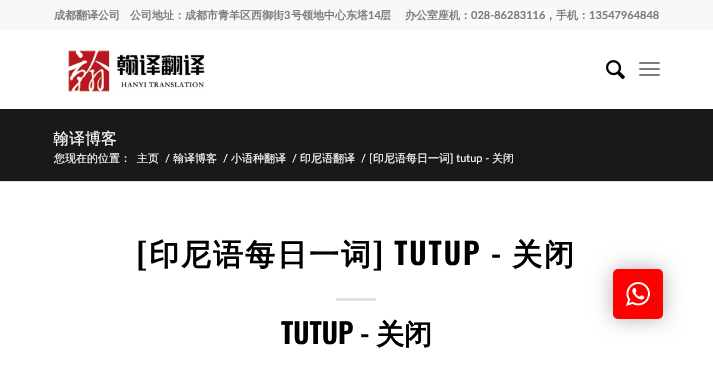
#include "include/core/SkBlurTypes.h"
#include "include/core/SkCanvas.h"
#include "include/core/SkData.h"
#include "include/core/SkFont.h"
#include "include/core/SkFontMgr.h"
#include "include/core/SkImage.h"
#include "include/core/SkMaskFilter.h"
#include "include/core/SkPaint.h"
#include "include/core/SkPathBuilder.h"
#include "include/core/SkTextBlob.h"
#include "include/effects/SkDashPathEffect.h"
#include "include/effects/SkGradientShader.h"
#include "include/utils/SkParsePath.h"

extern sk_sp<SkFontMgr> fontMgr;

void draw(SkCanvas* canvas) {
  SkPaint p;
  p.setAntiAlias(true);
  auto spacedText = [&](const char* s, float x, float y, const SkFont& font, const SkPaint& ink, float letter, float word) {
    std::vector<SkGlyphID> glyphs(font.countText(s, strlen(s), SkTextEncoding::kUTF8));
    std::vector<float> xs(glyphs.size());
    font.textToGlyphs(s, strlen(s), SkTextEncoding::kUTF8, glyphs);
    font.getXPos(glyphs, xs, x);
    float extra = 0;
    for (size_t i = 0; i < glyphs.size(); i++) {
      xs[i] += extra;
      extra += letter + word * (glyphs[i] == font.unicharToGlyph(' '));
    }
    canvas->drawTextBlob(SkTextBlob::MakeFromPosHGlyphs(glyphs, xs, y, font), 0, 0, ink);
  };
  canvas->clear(SK_ColorWHITE);
  p.setColor(SkColorSetRGB(248, 248, 248));
  canvas->drawRect(SkRect::MakeLTRB(0, 0, 713, 30), p);
  canvas->drawImageRect(SkImages::DeferredFromEncodedData(SkData::MakeFromFileName("images/1.png")), SkRect::MakeLTRB(68, 50, 205, 93), SkSamplingOptions());
  canvas->drawImageRect(SkImages::DeferredFromEncodedData(SkData::MakeFromFileName("images/2.png")), SkRect::MakeLTRB(606, 60, 625, 80), SkSamplingOptions());
  p.setColor(SkColorSetRGB(125, 125, 125));
  canvas->drawRoundRect(SkRect::MakeLTRB(639, 68, 660, 70), 1, 1, p);
  canvas->drawRoundRect(SkRect::MakeLTRB(639, 62, 660, 64), 1, 1, p);
  canvas->drawRoundRect(SkRect::MakeLTRB(639, 74, 660, 76), 1, 1, p);
  p.setColor(SkColorSetRGB(25, 25, 25));
  canvas->drawRect(SkRect::MakeLTRB(0, 109, 713, 181), p);
  p.setColor(SkColorSetRGB(225, 225, 225));
  canvas->drawRect(SkRect::MakeLTRB(0, 181, 713, 182), p);
  canvas->drawRect(SkRect::MakeLTRB(336, 298, 376, 301), p);
  p.setColor(SkColorSetARGB(77, 0, 0, 0));
  p.setMaskFilter(SkMaskFilter::MakeBlur(kNormal_SkBlurStyle, 10));
  canvas->drawRoundRect(SkRect::MakeLTRB(613, 269, 663, 319), 5, 5, p);
  p.setMaskFilter(nullptr);
  p.setColor(SkColorSetRGB(255, 0, 0));
  canvas->drawRoundRect(SkRect::MakeLTRB(613, 269, 663, 319), 5, 5, p);
  canvas->drawImageRect(SkImages::DeferredFromEncodedData(SkData::MakeFromFileName("images/3.png")), SkRect::MakeLTRB(626, 282, 650, 306), SkSamplingOptions());
  SkFont font1(fontMgr->matchFamilyStyle("WenQuanYi Zen Hei", SkFontStyle::Bold()), 11);
  font1.setSubpixel(true);
  p.setColor(SkColorSetRGB(125, 125, 125));
  canvas->drawString("成都翻译公司", 54, 19, font1, p);
  canvas->drawString("公司地址：成都市青羊区西御街", 130, 19, font1, p);
  SkFont font2(fontMgr->matchFamilyStyle("Lato", SkFontStyle::Bold()), 11);
  font2.setSubpixel(true);
  canvas->drawString("3", 284, 19, font2, p);
  canvas->drawString("号领地中心东塔", 291, 19, font1, p);
  canvas->drawString("14", 368, 19, font2, p);
  canvas->drawString("层", 380, 19, font1, p);
  canvas->drawString("办公室座机：", 405, 19, font1, p);
  canvas->drawString("028-86283116", 471, 19, font2, p);
  canvas->drawString("，手机：", 545, 19, font1, p);
  canvas->drawString("13547964848", 589, 19, font2, p);
  SkFont font3(fontMgr->matchFamilyStyle("WenQuanYi Zen Hei", SkFontStyle(500, SkFontStyle::kNormal_Width, SkFontStyle::kUpright_Slant)), 16);
  font3.setSubpixel(true);
  p.setColor(SK_ColorWHITE);
  canvas->drawString("翰译博客", 53, 144, font3, p);
  SkFont font4(fontMgr->matchFamilyStyle("WenQuanYi Zen Hei", SkFontStyle(500, SkFontStyle::kNormal_Width, SkFontStyle::kUpright_Slant)), 11);
  font4.setSubpixel(true);
  canvas->drawString("您现在的位置：", 54, 162, font4, p);
  canvas->drawString("主页", 137, 162, font4, p);
  SkFont font5(fontMgr->matchFamilyStyle("Lato", SkFontStyle::Normal()), 11);
  font5.setSubpixel(true);
  canvas->drawString("/", 165, 162, font5, p);
  canvas->drawString("翰译博客", 173, 162, font4, p);
  canvas->drawString("/", 223, 162, font5, p);
  canvas->drawString("小语种翻译", 231, 162, font4, p);
  canvas->drawString("/", 292, 162, font5, p);
  canvas->drawString("印尼语翻译", 300, 162, font4, p);
  canvas->drawString("/", 361, 162, font5, p);
  canvas->drawString("[", 369, 162, font5, p);
  canvas->drawString("印尼语每日一词", 373, 162, font4, p);
  canvas->drawString("] tutup -", 450, 162, font5, p);
  canvas->drawString("关闭", 492, 162, font4, p);
  SkFont font6(fontMgr->matchFamilyStyle("Oswald", SkFontStyle(600, SkFontStyle::kNormal_Width, SkFontStyle::kUpright_Slant)), 30);
  font6.setSubpixel(true);
  p.setColor(SK_ColorBLACK);
  spacedText("[", 137, 265, font6, p, 2, 0);
  SkFont font7(fontMgr->matchFamilyStyle("WenQuanYi Zen Hei", SkFontStyle::Bold()), 30);
  font7.setSubpixel(true);
  spacedText("印尼语每日一词", 149, 265, font7, p, 2, 0);
  spacedText("] TUTUP -", 373, 265, font6, p, 2, 0);
  spacedText("关闭", 512, 265, font7, p, 2, 0);
  SkFont font8(fontMgr->matchFamilyStyle("Oswald", SkFontStyle(600, SkFontStyle::kNormal_Width, SkFontStyle::kUpright_Slant)), 28);
  font8.setSubpixel(true);
  canvas->drawString("TUTUP -", 281, 344, font8, p);
  SkFont font9(fontMgr->matchFamilyStyle("WenQuanYi Zen Hei", SkFontStyle::Bold()), 28);
  font9.setSubpixel(true);
  canvas->drawString("关闭", 376, 344, font9, p);
}
